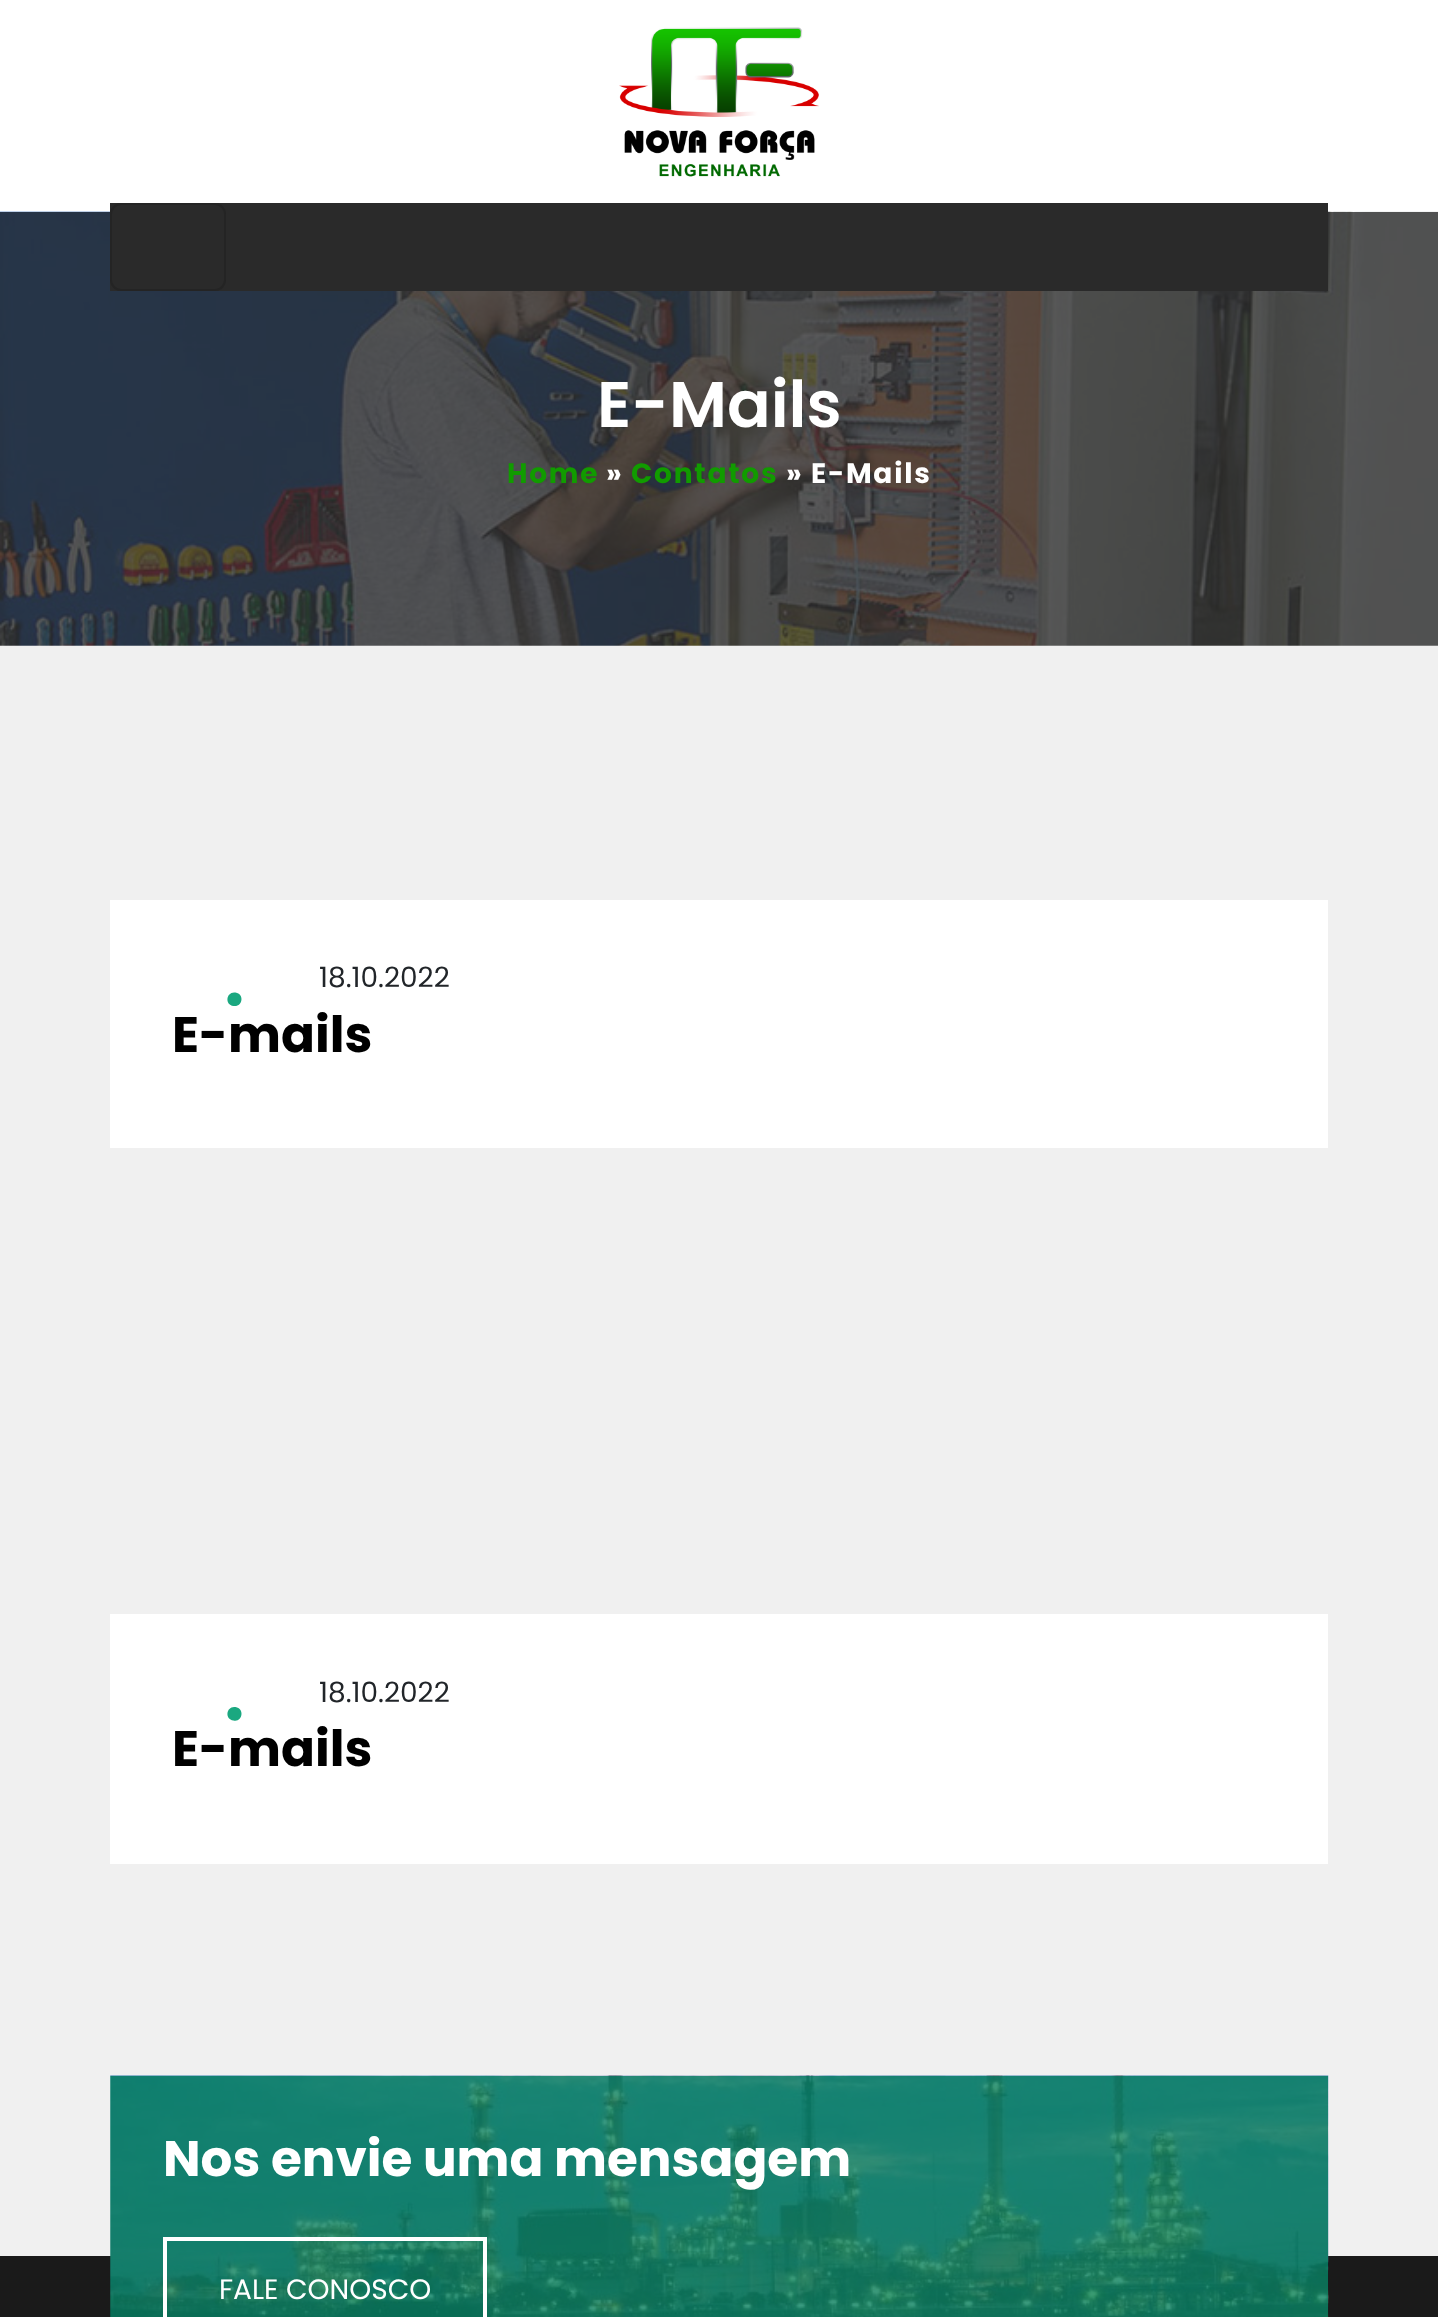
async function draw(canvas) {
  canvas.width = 1438
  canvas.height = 2317
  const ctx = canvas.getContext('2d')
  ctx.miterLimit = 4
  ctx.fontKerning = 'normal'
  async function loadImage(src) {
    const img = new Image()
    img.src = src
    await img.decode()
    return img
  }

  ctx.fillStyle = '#fff'
  ctx.fillRect(0, 0, 1438, 2317)
  ctx.drawImage(await loadImage('image0.png'), 619, 27, 200, 150)
  ctx.drawImage(await loadImage('image1.png'), 0, 211, 1438, 435)
  ctx.fillStyle = '#2a2a2a'
  ctx.fillRect(110, 203, 1218, 88)
  ctx.beginPath()
  ctx.roundRect(111, 204, 114, 86, 10)
  ctx.strokeStyle = '#242424'
  ctx.lineWidth = 2
  ctx.stroke()
  ctx.font = '600 64.5px Poppins'
  ctx.fillStyle = '#fff'
  ctx.fillText('E-Mails', 597, 427)
  ctx.letterSpacing = '1.75px'
  ctx.font = 'bold 28px Poppins'
  ctx.fillStyle = '#119b00'
  ctx.fillText('Home', 507, 483)
  ctx.fillStyle = '#fff'
  ctx.fillText('»', 606, 483)
  ctx.fillStyle = '#119b00'
  ctx.fillText('Contatos', 631, 483)
  ctx.fillStyle = '#fff'
  ctx.fillText('» E-Mails', 786, 483)
  ctx.fillStyle = '#f0f0f0'
  ctx.fillRect(0, 646, 1438, 1430)
  ctx.fillStyle = '#fff'
  ctx.fillRect(110, 900, 1218, 248)
  ctx.letterSpacing = '0px'
  ctx.font = '28px Poppins'
  ctx.fillStyle = '#212529'
  ctx.fillText('18.10.2022', 319, 987)
  ctx.fillStyle = '#1aa880'
  ctx.beginPath()
  ctx.moveTo(235.5, 992.5)
  ctx.bezierCurveTo(245, 994, 242.5, 1007.5, 233.5, 1006)
  ctx.bezierCurveTo(224, 1004.5, 226.5, 991, 235.5, 992.5)
  ctx.closePath()
  ctx.fill()
  ctx.font = 'bold 50px Poppins'
  ctx.fillStyle = '#000'
  ctx.fillText('E-mails', 172, 1052)
  ctx.fillStyle = '#fff'
  ctx.fillRect(110, 1614, 1218, 250)
  ctx.font = '28px Poppins'
  ctx.fillStyle = '#212529'
  ctx.fillText('18.10.2022', 319, 1702)
  ctx.fillStyle = '#1aa880'
  ctx.beginPath()
  ctx.moveTo(235.5, 1707)
  ctx.bezierCurveTo(245, 1708.5, 242.5, 1722.5, 233.5, 1720.5)
  ctx.bezierCurveTo(224, 1719, 226.5, 1705.5, 235.5, 1707)
  ctx.closePath()
  ctx.fill()
  ctx.font = 'bold 50px Poppins'
  ctx.fillStyle = '#000'
  ctx.fillText('E-mails', 172, 1766)
  ctx.fillStyle = '#f0f0f0'
  ctx.fillRect(0, 2076, 1438, 180)
  ctx.fillStyle = '#1a1a1a'
  ctx.fillRect(0, 2256, 1438, 61)
  ctx.drawImage(await loadImage('image2.png'), 110, 2075, 1219, 242)
  ctx.fillStyle = '#fff'
  ctx.fillText('Nos envie uma mensagem', 163, 2176)
  ctx.strokeStyle = '#fff'
  ctx.lineWidth = 4
  ctx.strokeRect(165, 2239, 320, 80)
  ctx.font = '28px Poppins'
  ctx.fillText('FALE CONOSCO', 219, 2299)
}

draw(document.querySelector('canvas'))
